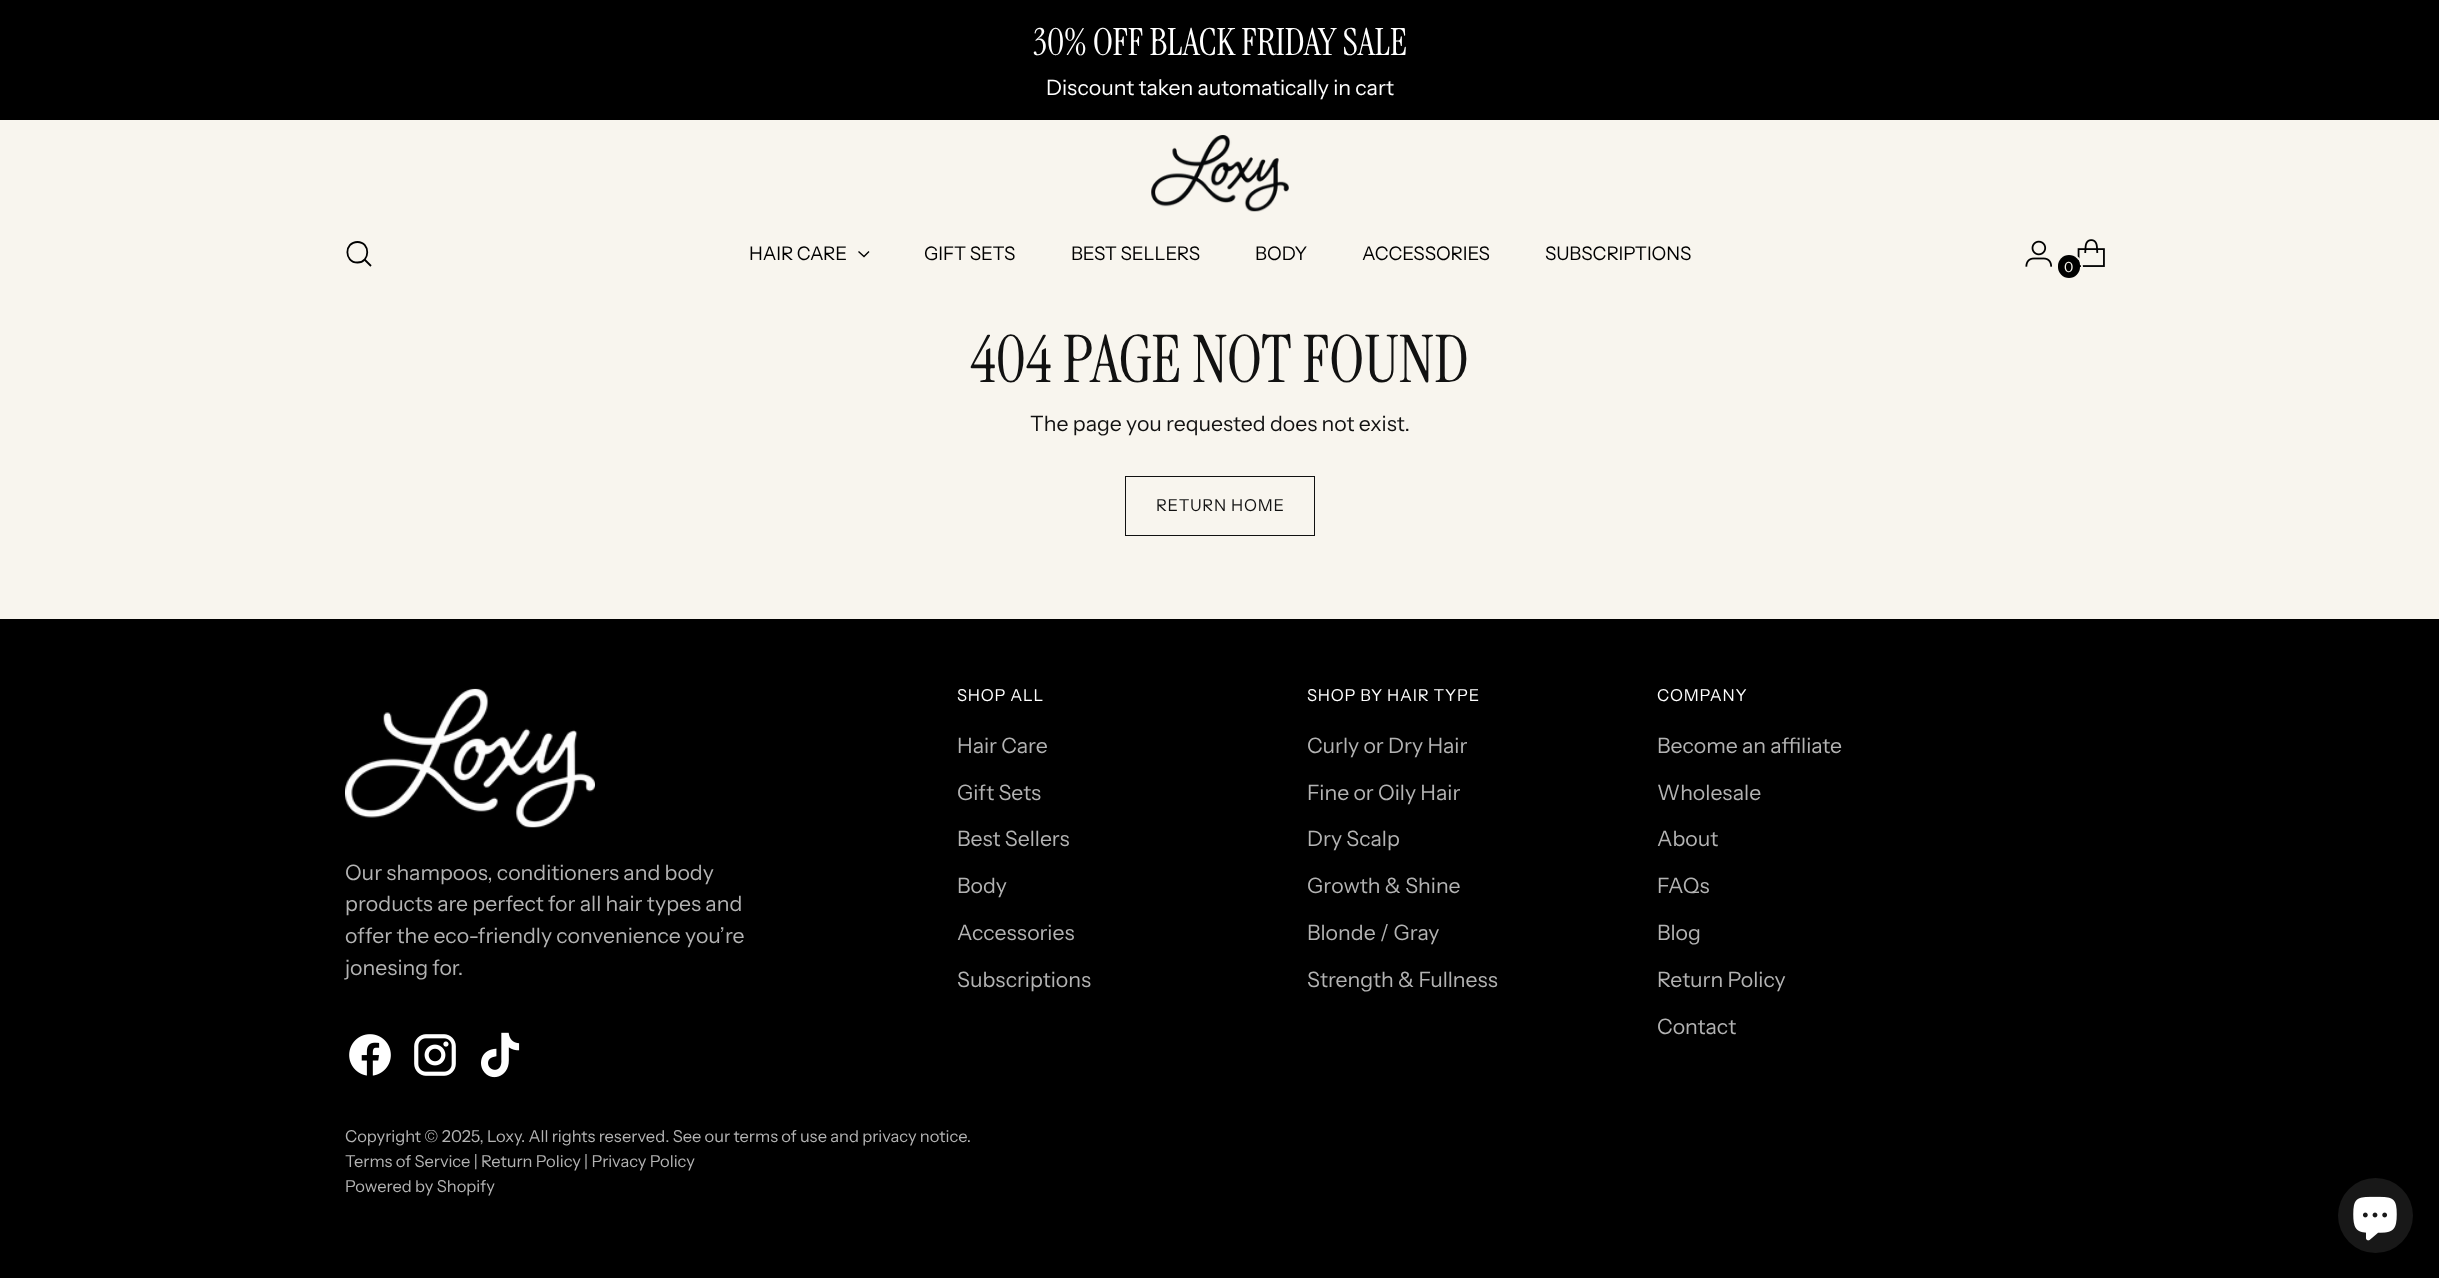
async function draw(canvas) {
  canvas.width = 2439
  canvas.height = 1278
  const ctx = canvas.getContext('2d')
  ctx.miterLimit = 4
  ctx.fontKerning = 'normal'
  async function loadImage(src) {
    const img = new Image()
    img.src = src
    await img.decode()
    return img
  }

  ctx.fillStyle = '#f8f5ee'
  ctx.fillRect(0, 0, 2439, 1278)
  ctx.fillStyle = '#000'
  ctx.fillRect(0, 0, 2439, 120)
  ctx.font = '37.5px Instrument Serif'
  ctx.fillStyle = '#fff'
  ctx.fillText('30% OFF BLACK FRIDAY SALE', 1033, 55)
  ctx.font = '21.25px Instrument Sans'
  ctx.fillText('Discount taken automatically in cart', 1046, 95)
  ctx.drawImage(await loadImage('image0.png'), 1151, 135, 138, 77)
  ctx.beginPath()
  ctx.moveTo(357.5, 262.5)
  ctx.bezierCurveTo(370.5, 262.5, 370.5, 242, 357.5, 242)
  ctx.bezierCurveTo(344, 242, 344, 262.5, 357.5, 262.5)
  ctx.closePath()
  ctx.strokeStyle = '#000'
  ctx.lineWidth = 1.8
  ctx.lineCap = 'round'
  ctx.stroke()
  ctx.beginPath()
  ctx.moveTo(364.5, 259.5)
  ctx.lineTo(371, 266)
  ctx.lineCap = 'butt'
  ctx.stroke()
  ctx.letterSpacing = '-0.1px'
  ctx.font = '18.75px Instrument Sans'
  ctx.fillStyle = '#000'
  ctx.fillText('HAIR CARE', 749, 260)
  ctx.beginPath()
  ctx.moveTo(858.5, 251.5)
  ctx.lineTo(864, 256.5)
  ctx.lineTo(869, 251.5)
  ctx.lineWidth = 1.4
  ctx.stroke()
  ctx.fillText('GIFT SETS', 924, 260)
  ctx.fillText('BEST SELLERS', 1071, 260)
  ctx.fillText('BODY', 1255, 260)
  ctx.fillText('ACCESSORIES', 1362, 260)
  ctx.fillText('SUBSCRIPTIONS', 1545, 260)
  ctx.drawImage(await loadImage('image1.png'), 2025, 240, 28, 27)
  ctx.drawImage(await loadImage('image2.png'), 2077, 239, 28, 28)
  ctx.beginPath()
  ctx.roundRect(2057, 255, 25, 24, 12)
  ctx.strokeStyle = '#f8f5ee'
  ctx.lineWidth = 2
  ctx.stroke()
  ctx.beginPath()
  ctx.roundRect(2058, 255, 22, 23, 11)
  ctx.fill()
  ctx.letterSpacing = '0px'
  ctx.font = '14px Instrument Sans'
  ctx.fillStyle = '#f8f5ee'
  ctx.fillText('0', 2064, 272)
  ctx.font = '65.5px Instrument Serif'
  ctx.fillStyle = '#111'
  ctx.fillText('404 PAGE NOT FOUND', 970, 382)
  ctx.font = '21.25px Instrument Sans'
  ctx.fillText('The page you requested does not exist.', 1030, 431)
  ctx.strokeStyle = '#111'
  ctx.lineWidth = 1
  ctx.strokeRect(1125.5, 476.5, 189, 59)
  ctx.letterSpacing = '0.8px'
  ctx.font = '16.5px Instrument Sans'
  ctx.fillText('RETURN HOME', 1156, 511)
  ctx.fillStyle = '#000'
  ctx.fillRect(0, 619, 2439, 659)
  ctx.drawImage(await loadImage('image3.png'), 345, 688, 250, 140)
  ctx.letterSpacing = '0px'
  ctx.font = '21.25px Instrument Sans'
  ctx.fillStyle = '#b3b3b3'
  ctx.fillText('Our shampoos, conditioners and body', 345, 880)
  ctx.fillText('products are perfect for all hair types and', 345, 911)
  ctx.fillText('offer the eco-friendly convenience you’re', 345, 943)
  ctx.fillText('jonesing for.', 345, 975)
  ctx.drawImage(await loadImage('image4.png'), 349, 1034, 42, 42)
  ctx.drawImage(await loadImage('image5.png'), 414, 1034, 42, 42)
  ctx.drawImage(await loadImage('image6.png'), 481, 1032, 39, 46)
  ctx.letterSpacing = '0.8px'
  ctx.font = '16.5px Instrument Sans'
  ctx.fillStyle = '#fff'
  ctx.fillText('SHOP ALL', 957, 701)
  ctx.letterSpacing = '0px'
  ctx.font = '21.25px Instrument Sans'
  ctx.fillStyle = '#b3b3b3'
  ctx.fillText('Hair Care', 957, 753)
  ctx.fillText('Gift Sets', 957, 800)
  ctx.fillText('Best Sellers', 957, 846)
  ctx.fillText('Body', 957, 893)
  ctx.fillText('Accessories', 957, 940)
  ctx.fillText('Subscriptions', 957, 987)
  ctx.letterSpacing = '0.8px'
  ctx.font = '16.5px Instrument Sans'
  ctx.fillStyle = '#fff'
  ctx.fillText('SHOP BY HAIR TYPE', 1307, 701)
  ctx.letterSpacing = '0px'
  ctx.font = '21.25px Instrument Sans'
  ctx.fillStyle = '#b3b3b3'
  ctx.fillText('Curly or Dry Hair', 1307, 753)
  ctx.fillText('Fine or Oily Hair', 1307, 800)
  ctx.fillText('Dry Scalp', 1307, 846)
  ctx.fillText('Growth & Shine', 1307, 893)
  ctx.fillText('Blonde / Gray', 1307, 940)
  ctx.fillText('Strength & Fullness', 1307, 987)
  ctx.letterSpacing = '0.8px'
  ctx.font = '16.5px Instrument Sans'
  ctx.fillStyle = '#fff'
  ctx.fillText('COMPANY', 1657, 701)
  ctx.letterSpacing = '0px'
  ctx.font = '21.25px Instrument Sans'
  ctx.fillStyle = '#b3b3b3'
  ctx.fillText('Become an affiliate', 1657, 753)
  ctx.fillText('Wholesale', 1657, 800)
  ctx.fillText('About', 1657, 846)
  ctx.fillText('FAQs', 1657, 893)
  ctx.fillText('Blog', 1657, 940)
  ctx.fillText('Return Policy', 1657, 987)
  ctx.fillText('Contact', 1657, 1034)
  ctx.font = '16.5px Instrument Sans'
  ctx.fillText('Copyright © 2025, Loxy', 345, 1142)
  ctx.fillText('. All rights reserved. See our terms of use and privacy notice.', 521, 1142)
  ctx.fillText('Terms of Service | Return Policy | Privacy Policy', 345, 1167)
  ctx.fillText('Powered by Shopify', 345, 1192)
  ctx.fillStyle = '#181818'
  ctx.beginPath()
  ctx.arc(2375.5, 1215.5, 37.5, 0, 2 * Math.PI)
  ctx.fill()
  ctx.drawImage(await loadImage('image7.png'), 2353, 1196, 44, 45)
}

draw(document.querySelector('canvas'))
